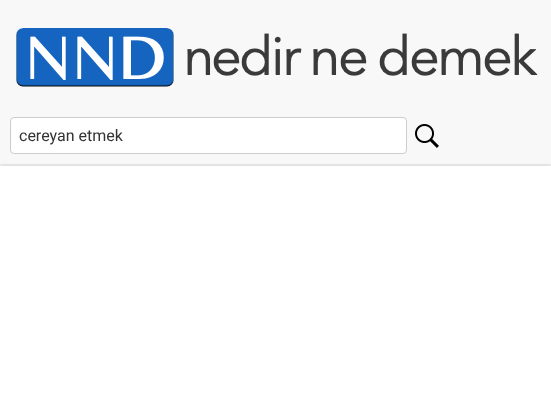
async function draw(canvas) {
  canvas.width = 551
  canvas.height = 407
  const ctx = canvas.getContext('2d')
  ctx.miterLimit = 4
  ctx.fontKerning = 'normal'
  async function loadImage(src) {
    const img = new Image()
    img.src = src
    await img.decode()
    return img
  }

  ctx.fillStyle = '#f1f1f1'
  ctx.fillRect(0, 0, 551, 407)
  ctx.fillStyle = '#f8f8f8'
  ctx.fillRect(0, 0, 551, 164)
  ctx.fillStyle = '#eee'
  ctx.fillRect(0, 164, 551, 1)
  ctx.drawImage(await loadImage('image0.png'), 16, 28, 522, 59)
  ctx.fillStyle = '#fff'
  ctx.beginPath()
  ctx.roundRect(10.5, 117.5, 396, 36, 3.5)
  ctx.fill()
  ctx.strokeStyle = '#ccc'
  ctx.stroke()
  ctx.font = '16px Roboto'
  ctx.fillStyle = '#333'
  ctx.fillText('cereyan etmek', 19, 141)
  ctx.drawImage(await loadImage('image1.png'), 415, 124, 24, 24)
  ctx.fillStyle = '#00000040'
  ctx.filter = 'blur(2px)'
  ctx.beginPath()
  ctx.rect(0, 167, 551, 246)
  ctx.fill()
  ctx.filter = 'none'
  ctx.fillStyle = '#fff'
  ctx.fillRect(0, 166, 551, 241)
}

draw(document.querySelector('canvas'))
